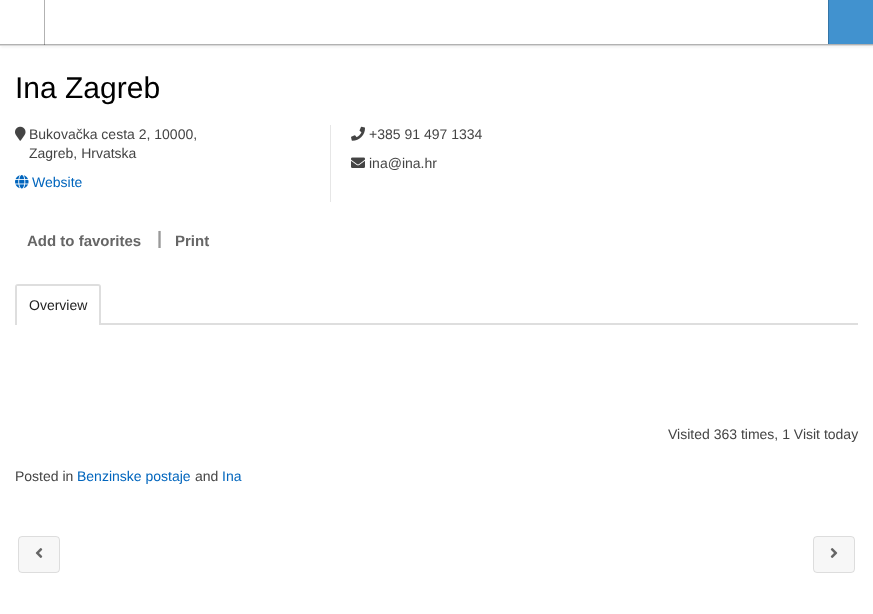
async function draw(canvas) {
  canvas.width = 873
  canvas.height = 614
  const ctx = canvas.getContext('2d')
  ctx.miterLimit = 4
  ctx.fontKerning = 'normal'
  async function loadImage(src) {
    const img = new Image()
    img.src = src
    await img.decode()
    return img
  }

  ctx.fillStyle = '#fff'
  ctx.fillRect(0, 0, 873, 614)
  ctx.fillStyle = '#0000001a'
  ctx.filter = 'blur(1px)'
  ctx.beginPath()
  ctx.rect(1, 46, 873, 1)
  ctx.fill()
  ctx.filter = 'none'
  ctx.fillStyle = '#b2b2b2'
  ctx.fillRect(0, 44, 873, 1)
  ctx.fillStyle = '#0000004d'
  ctx.fillRect(44, 0, 1, 45)
  ctx.fillStyle = '#dadada'
  ctx.fillRect(0, 45, 873, 1)
  ctx.fillStyle = '#4192cf'
  ctx.fillRect(829, 0, 44, 44)
  ctx.fillStyle = '#3475a6'
  ctx.fillRect(828, 0, 1, 44)
  ctx.font = '30px Liberation Sans'
  ctx.fillStyle = '#000'
  ctx.fillText('Ina Zagreb', 15, 98)
  ctx.fillStyle = '#e6e6e6'
  ctx.fillRect(330, 125, 1, 77)
  ctx.drawImage(await loadImage('image0.png'), 15, 126, 11, 15)
  ctx.font = '14px Liberation Sans'
  ctx.fillStyle = '#444'
  ctx.fillText('Bukovačka cesta 2, 10000,', 29, 139)
  ctx.fillText('Zagreb, Hrvatska', 29, 158)
  ctx.drawImage(await loadImage('image1.png'), 15, 175, 14, 14)
  ctx.fillStyle = '#0165bd'
  ctx.fillText('Website', 32, 187)
  ctx.drawImage(await loadImage('image2.png'), 351, 126, 14, 15)
  ctx.fillStyle = '#444'
  ctx.fillText('+385 91 497 1334', 369, 139)
  ctx.drawImage(await loadImage('image3.png'), 351, 157, 14, 11)
  ctx.fillText('ina@ina.hr', 369, 168)
  ctx.font = 'bold 15px Liberation Sans'
  ctx.fillStyle = '#666'
  ctx.fillText('Add to favorites', 27, 246)
  ctx.font = 'bold 18px Liberation Sans'
  ctx.fillStyle = '#999'
  ctx.fillText('|', 157, 244)
  ctx.font = 'bold 15px Liberation Sans'
  ctx.fillStyle = '#666'
  ctx.fillText('Print', 175, 246)
  ctx.fillStyle = '#dedede'
  ctx.fillRect(101, 323, 757, 2)
  ctx.beginPath()
  ctx.moveTo(18, 284)
  ctx.lineTo(98, 284)
  ctx.bezierCurveTo(100, 284, 101, 285, 101, 287)
  ctx.lineTo(101, 325)
  ctx.lineTo(15, 325)
  ctx.lineTo(15, 287)
  ctx.bezierCurveTo(15, 285, 16, 284, 18, 284)
  ctx.closePath()
  ctx.moveTo(18, 286)
  ctx.lineTo(98, 286)
  ctx.bezierCurveTo(99, 286, 99, 286, 99, 287)
  ctx.lineTo(99, 325)
  ctx.lineTo(17, 325)
  ctx.lineTo(17, 286)
  ctx.closePath()
  ctx.fill('evenodd')
  ctx.font = '14px Liberation Sans'
  ctx.fillStyle = '#222'
  ctx.fillText('Overview', 29, 310)
  ctx.fillStyle = '#444'
  ctx.fillText('Visited 363 times, 1 Visit today', 668, 439)
  ctx.fillText('Posted in', 15, 481)
  ctx.fillStyle = '#0165bd'
  ctx.fillText('Benzinske postaje', 77, 481)
  ctx.fillStyle = '#444'
  ctx.fillText('and', 195, 481)
  ctx.fillStyle = '#0165bd'
  ctx.fillText('Ina', 222, 481)
  ctx.fillStyle = '#f7f7f7'
  ctx.beginPath()
  ctx.roundRect(18, 536, 42, 37, 4)
  ctx.fill()
  ctx.beginPath()
  ctx.roundRect(18.5, 536.5, 41, 36, 3.5)
  ctx.strokeStyle = '#0000001a'
  ctx.stroke()
  ctx.drawImage(await loadImage('image4.png'), 35, 548, 8, 10)
  ctx.beginPath()
  ctx.roundRect(813, 536, 42, 37, 4)
  ctx.fill()
  ctx.beginPath()
  ctx.roundRect(813.5, 536.5, 41, 36, 3.5)
  ctx.stroke()
  ctx.drawImage(await loadImage('image5.png'), 830, 548, 8, 10)
}

draw(document.querySelector('canvas'))
